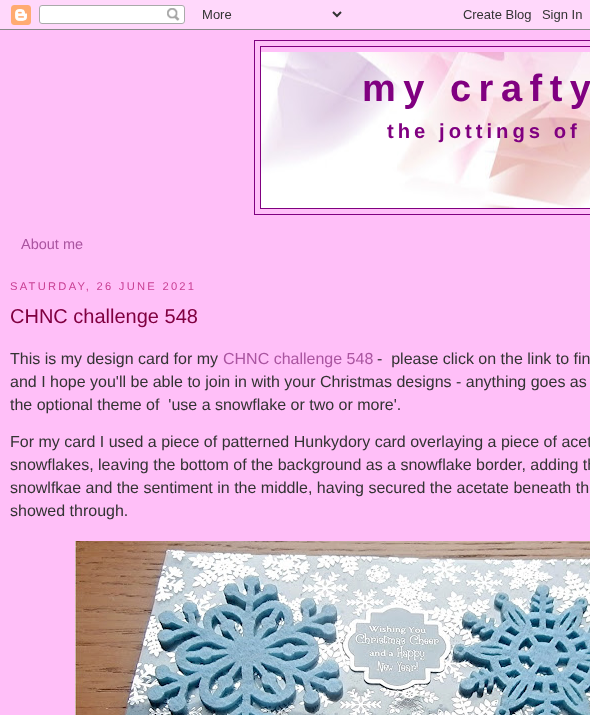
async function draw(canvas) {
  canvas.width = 590
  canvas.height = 715
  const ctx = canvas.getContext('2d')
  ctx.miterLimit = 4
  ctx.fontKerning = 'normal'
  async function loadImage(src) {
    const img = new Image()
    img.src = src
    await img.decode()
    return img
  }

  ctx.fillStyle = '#ffbff8'
  ctx.fillRect(0, 0, 590, 715)
  ctx.drawImage(await loadImage('image0.png'), 0, 0, 590, 30)
  ctx.strokeStyle = '#800080'
  ctx.strokeRect(254.5, 40.5, 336, 174)
  ctx.strokeRect(260.5, 46.5, 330, 162)
  ctx.drawImage(await loadImage('image1.png'), 261, 52, 329, 156)
  ctx.letterSpacing = '7.5px'
  ctx.font = 'bold 38px Liberation Sans'
  ctx.fillStyle = '#800080'
  ctx.fillText('my crafty', 362, 101)
  ctx.letterSpacing = '4px'
  ctx.font = 'bold 20.25px Liberation Sans'
  ctx.fillText('the jottings of', 387, 138)
  ctx.letterSpacing = '0px'
  ctx.font = '14.5px Liberation Sans'
  ctx.fillStyle = '#aa55a0'
  ctx.fillText('About me', 21, 249)
  ctx.letterSpacing = '2.25px'
  ctx.font = '11.2px Liberation Sans'
  ctx.fillStyle = '#c94093'
  ctx.fillText('SATURDAY, 26 JUNE 2021', 10, 290)
  ctx.letterSpacing = '0px'
  ctx.font = '20px Liberation Sans'
  ctx.fillStyle = '#800040'
  ctx.fillText('CHNC challenge 548', 10, 323)
  ctx.font = '16px Liberation Sans'
  ctx.fillStyle = '#333'
  ctx.fillText('This is my design card for my', 10, 364)
  ctx.fillStyle = '#aa55a0'
  ctx.fillText('CHNC challenge 548', 223, 364)
  ctx.fillStyle = '#333'
  ctx.fillText('-  please click on the link to fin', 377, 364)
  ctx.fillText('and I hope you\'ll be able to join in with your Christmas designs - anything goes as', 10, 387)
  ctx.fillText('the optional theme of  \'use a snowflake or two or more\'.', 10, 410)
  ctx.fillText('For my card I used a piece of patterned Hunkydory card overlaying a piece of acet', 10, 447)
  ctx.fillText('snowflakes, leaving the bottom of the background as a snowflake border, adding th', 10, 470)
  ctx.fillText('snowlfkae and the sentiment in the middle, having secured the acetate beneath th', 10, 493)
  ctx.fillText('showed through.', 10, 516)
  ctx.drawImage(await loadImage('image2.png'), 75, 541, 515, 174)
}

draw(document.querySelector('canvas'))
